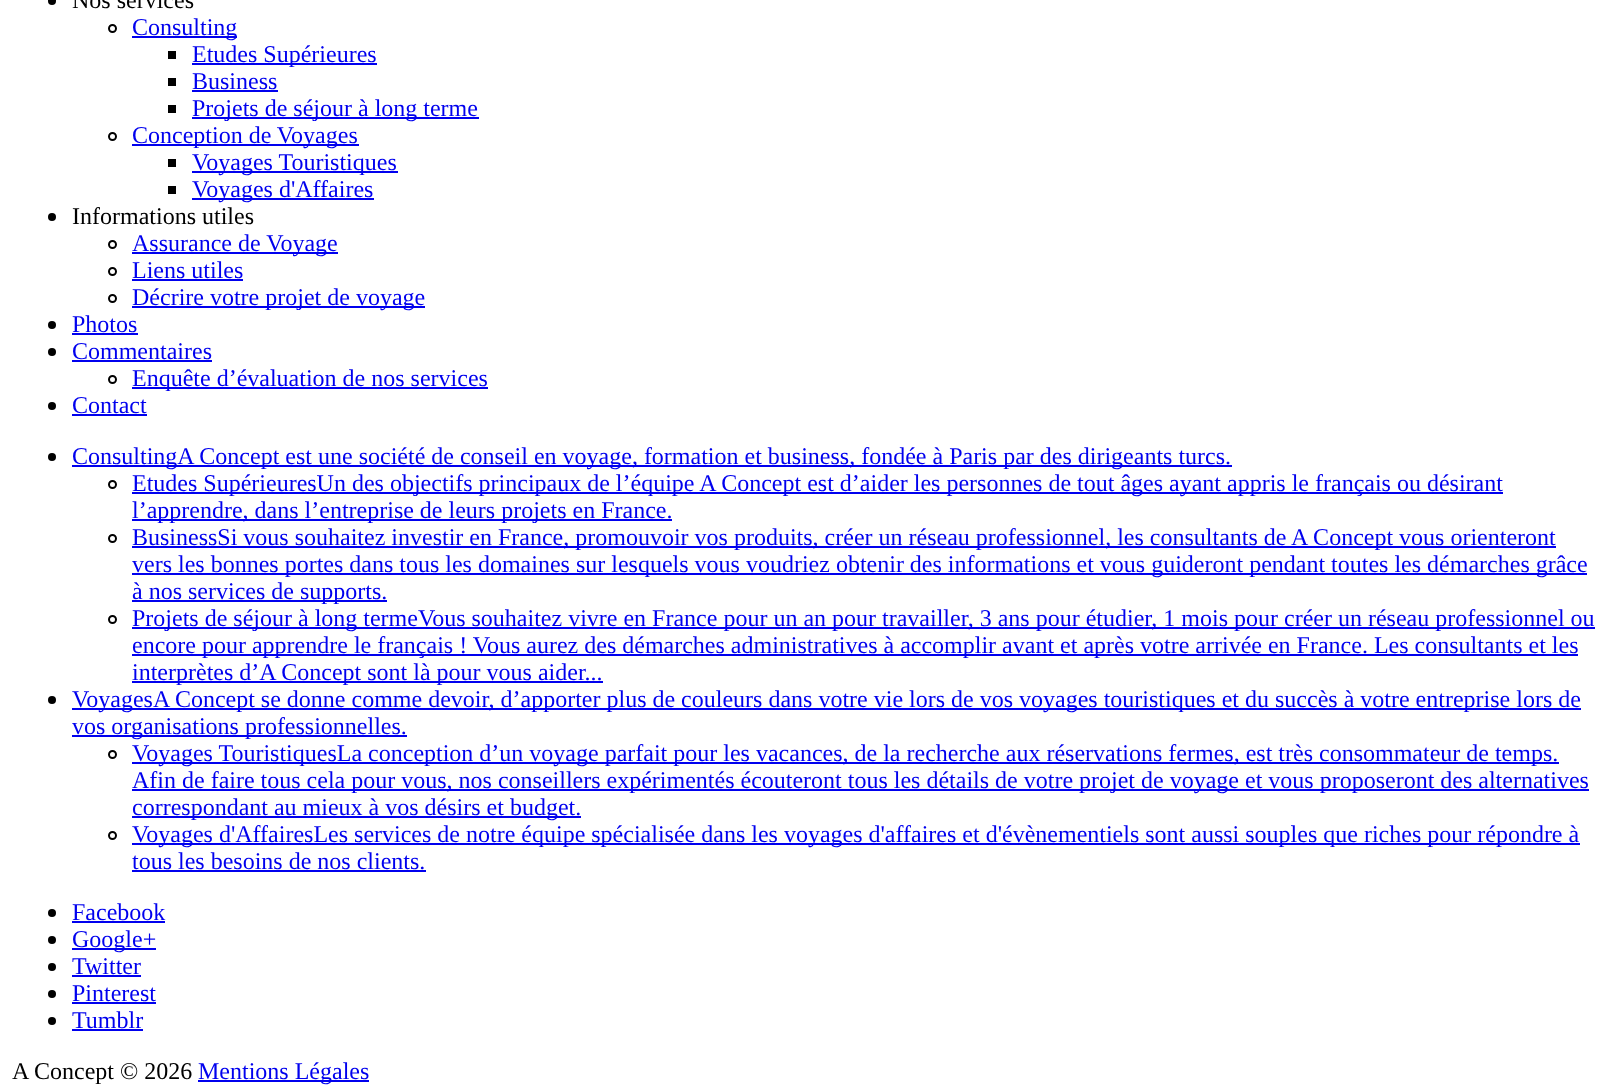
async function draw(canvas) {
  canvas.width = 1607
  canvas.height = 1086
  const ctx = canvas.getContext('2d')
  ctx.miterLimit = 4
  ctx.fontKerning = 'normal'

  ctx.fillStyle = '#fff'
  ctx.fillRect(0, 0, 1607, 1086)
  ctx.fillStyle = '#000'
  ctx.beginPath()
  ctx.arc(52, 1, 4, 0, 2 * Math.PI)
  ctx.fill()
  ctx.font = '24px Liberation Serif'
  ctx.fillText('Nos services', 72, 8)
  ctx.beginPath()
  ctx.arc(112.5, 28.5, 3.5, 0, 2 * Math.PI)
  ctx.strokeStyle = '#000'
  ctx.lineWidth = 2
  ctx.stroke()
  ctx.fillStyle = '#00e'
  ctx.fillRect(132, 36, 105, 2)
  ctx.fillText('Consulting', 132, 35)
  ctx.fillStyle = '#000'
  ctx.fillRect(168, 51, 8, 8)
  ctx.fillStyle = '#00e'
  ctx.fillRect(192, 63, 185, 2)
  ctx.fillText('Etudes Supérieures', 192, 62)
  ctx.fillStyle = '#000'
  ctx.fillRect(168, 78, 8, 8)
  ctx.fillStyle = '#00e'
  ctx.fillText('Business', 192, 89)
  ctx.fillRect(192, 90, 86, 2)
  ctx.fillStyle = '#000'
  ctx.fillRect(168, 105, 8, 8)
  ctx.fillStyle = '#00e'
  ctx.fillRect(192, 117, 287, 2)
  ctx.fillText('Projets de séjour à long terme', 192, 116)
  ctx.beginPath()
  ctx.arc(112.5, 136.5, 3.5, 0, 2 * Math.PI)
  ctx.stroke()
  ctx.fillRect(132, 144, 227, 2)
  ctx.fillText('Conception de Voyages', 132, 143)
  ctx.fillStyle = '#000'
  ctx.fillRect(168, 159, 8, 8)
  ctx.fillStyle = '#00e'
  ctx.fillRect(192, 171, 206, 2)
  ctx.fillText('Voyages Touristiques', 192, 170)
  ctx.fillStyle = '#000'
  ctx.fillRect(168, 186, 8, 8)
  ctx.fillStyle = '#00e'
  ctx.fillRect(192, 198, 182, 2)
  ctx.fillText('Voyages d\'Affaires', 192, 197)
  ctx.fillStyle = '#000'
  ctx.beginPath()
  ctx.arc(52, 217, 4, 0, 2 * Math.PI)
  ctx.fill()
  ctx.fillText('Informations utiles', 72, 224)
  ctx.beginPath()
  ctx.arc(112.5, 244.5, 3.5, 0, 2 * Math.PI)
  ctx.stroke()
  ctx.fillStyle = '#00e'
  ctx.fillRect(132, 252, 206, 2)
  ctx.fillText('Assurance de Voyage', 132, 251)
  ctx.beginPath()
  ctx.arc(112.5, 271.5, 3.5, 0, 2 * Math.PI)
  ctx.stroke()
  ctx.fillText('Liens utiles', 132, 278)
  ctx.fillRect(132, 279, 111, 2)
  ctx.beginPath()
  ctx.arc(112.5, 298.5, 3.5, 0, 2 * Math.PI)
  ctx.stroke()
  ctx.fillRect(132, 306, 293, 2)
  ctx.fillText('Décrire votre projet de voyage', 132, 305)
  ctx.fillStyle = '#000'
  ctx.beginPath()
  ctx.arc(52, 325, 4, 0, 2 * Math.PI)
  ctx.fill()
  ctx.fillStyle = '#00e'
  ctx.fillText('Photos', 72, 332)
  ctx.fillRect(72, 333, 66, 2)
  ctx.fillStyle = '#000'
  ctx.beginPath()
  ctx.arc(52, 352, 4, 0, 2 * Math.PI)
  ctx.fill()
  ctx.fillStyle = '#00e'
  ctx.fillText('Commentaires', 72, 359)
  ctx.fillRect(72, 360, 140, 2)
  ctx.beginPath()
  ctx.arc(112.5, 379.5, 3.5, 0, 2 * Math.PI)
  ctx.stroke()
  ctx.fillRect(132, 387, 356, 2)
  ctx.fillText('Enquête d’évaluation de nos services', 132, 386)
  ctx.fillStyle = '#000'
  ctx.beginPath()
  ctx.arc(52, 406, 4, 0, 2 * Math.PI)
  ctx.fill()
  ctx.fillStyle = '#00e'
  ctx.fillText('Contact', 72, 413)
  ctx.fillRect(72, 414, 75, 2)
  ctx.fillStyle = '#000'
  ctx.beginPath()
  ctx.arc(52, 457, 4, 0, 2 * Math.PI)
  ctx.fill()
  ctx.fillStyle = '#00e'
  ctx.fillRect(72, 465, 1160, 2)
  ctx.fillText('ConsultingA Concept est une société de conseil en voyage, formation et business, fondée à Paris par des dirigeants turcs.', 72, 464)
  ctx.beginPath()
  ctx.arc(112.5, 484.5, 3.5, 0, 2 * Math.PI)
  ctx.stroke()
  ctx.fillRect(132, 492, 1371, 2)
  ctx.fillText('Etudes SupérieuresUn des objectifs principaux de l’équipe A Concept est d’aider les personnes de tout âges ayant appris le français ou désirant', 132, 491)
  ctx.fillRect(132, 519, 540, 2)
  ctx.fillText('l’apprendre, dans l’entreprise de leurs projets en France.', 132, 518)
  ctx.beginPath()
  ctx.arc(112.5, 538.5, 3.5, 0, 2 * Math.PI)
  ctx.stroke()
  ctx.fillRect(132, 546, 1424, 2)
  ctx.fillText('BusinessSi vous souhaitez investir en France, promouvoir vos produits, créer un réseau professionnel, les consultants de A Concept vous orienteront', 132, 545)
  ctx.fillRect(132, 573, 1455, 2)
  ctx.fillText('vers les bonnes portes dans tous les domaines sur lesquels vous voudriez obtenir des informations et vous guideront pendant toutes les démarches grâce', 132, 572)
  ctx.fillRect(132, 600, 255, 2)
  ctx.fillText('à nos services de supports.', 132, 599)
  ctx.beginPath()
  ctx.arc(112.5, 619.5, 3.5, 0, 2 * Math.PI)
  ctx.stroke()
  ctx.fillRect(132, 627, 1463, 2)
  ctx.fillText('Projets de séjour à long termeVous souhaitez vivre en France pour un an pour travailler, 3 ans pour étudier, 1 mois pour créer un réseau professionnel ou', 132, 626)
  ctx.fillRect(132, 654, 1446, 2)
  ctx.fillText('encore pour apprendre le français ! Vous aurez des démarches administratives à accomplir avant et après votre arrivée en France. Les consultants et les', 132, 653)
  ctx.fillRect(132, 681, 471, 2)
  ctx.fillText('interprètes d’A Concept sont là pour vous aider...', 132, 680)
  ctx.fillStyle = '#000'
  ctx.beginPath()
  ctx.arc(52, 700, 4, 0, 2 * Math.PI)
  ctx.fill()
  ctx.fillStyle = '#00e'
  ctx.fillRect(72, 708, 1509, 2)
  ctx.fillText('VoyagesA Concept se donne comme devoir, d’apporter plus de couleurs dans votre vie lors de vos voyages touristiques et du succès à votre entreprise lors de', 72, 707)
  ctx.fillRect(72, 735, 335, 2)
  ctx.fillText('vos organisations professionnelles.', 72, 734)
  ctx.beginPath()
  ctx.arc(112.5, 754.5, 3.5, 0, 2 * Math.PI)
  ctx.stroke()
  ctx.fillRect(132, 762, 1427, 2)
  ctx.fillText('Voyages TouristiquesLa conception d’un voyage parfait pour les vacances, de la recherche aux réservations fermes, est très consommateur de temps.', 132, 761)
  ctx.fillRect(132, 789, 1457, 2)
  ctx.fillText('Afin de faire tous cela pour vous, nos conseillers expérimentés écouteront tous les détails de votre projet de voyage et vous proposeront des alternatives', 132, 788)
  ctx.fillRect(132, 816, 449, 2)
  ctx.fillText('correspondant au mieux à vos désirs et budget.', 132, 815)
  ctx.beginPath()
  ctx.arc(112.5, 835.5, 3.5, 0, 2 * Math.PI)
  ctx.stroke()
  ctx.fillRect(132, 843, 1448, 2)
  ctx.fillText('Voyages d\'AffairesLes services de notre équipe spécialisée dans les voyages d\'affaires et d\'évènementiels sont aussi souples que riches pour répondre à', 132, 842)
  ctx.fillText('tous les besoins de nos clients.', 132, 869)
  ctx.fillRect(132, 870, 294, 2)
  ctx.fillStyle = '#000'
  ctx.beginPath()
  ctx.arc(52, 913, 4, 0, 2 * Math.PI)
  ctx.fill()
  ctx.fillStyle = '#00e'
  ctx.fillText('Facebook', 72, 920)
  ctx.fillRect(72, 921, 93, 2)
  ctx.fillStyle = '#000'
  ctx.beginPath()
  ctx.arc(52, 940, 4, 0, 2 * Math.PI)
  ctx.fill()
  ctx.fillStyle = '#00e'
  ctx.fillRect(72, 948, 84, 2)
  ctx.fillText('Google+', 72, 947)
  ctx.fillStyle = '#000'
  ctx.beginPath()
  ctx.arc(52, 967, 4, 0, 2 * Math.PI)
  ctx.fill()
  ctx.fillStyle = '#00e'
  ctx.fillText('Twitter', 72, 974)
  ctx.fillRect(72, 975, 69, 2)
  ctx.fillStyle = '#000'
  ctx.beginPath()
  ctx.arc(52, 994, 4, 0, 2 * Math.PI)
  ctx.fill()
  ctx.fillStyle = '#00e'
  ctx.fillText('Pinterest', 72, 1001)
  ctx.fillRect(72, 1002, 84, 2)
  ctx.fillStyle = '#000'
  ctx.beginPath()
  ctx.arc(52, 1021, 4, 0, 2 * Math.PI)
  ctx.fill()
  ctx.fillStyle = '#00e'
  ctx.fillText('Tumblr', 72, 1028)
  ctx.fillRect(72, 1029, 71, 2)
  ctx.fillStyle = '#000'
  ctx.fillText('A Concept © 2026', 12, 1079)
  ctx.fillStyle = '#00e'
  ctx.fillRect(198, 1080, 171, 2)
  ctx.fillText('Mentions Légales', 198, 1079)
}

draw(document.querySelector('canvas'))
